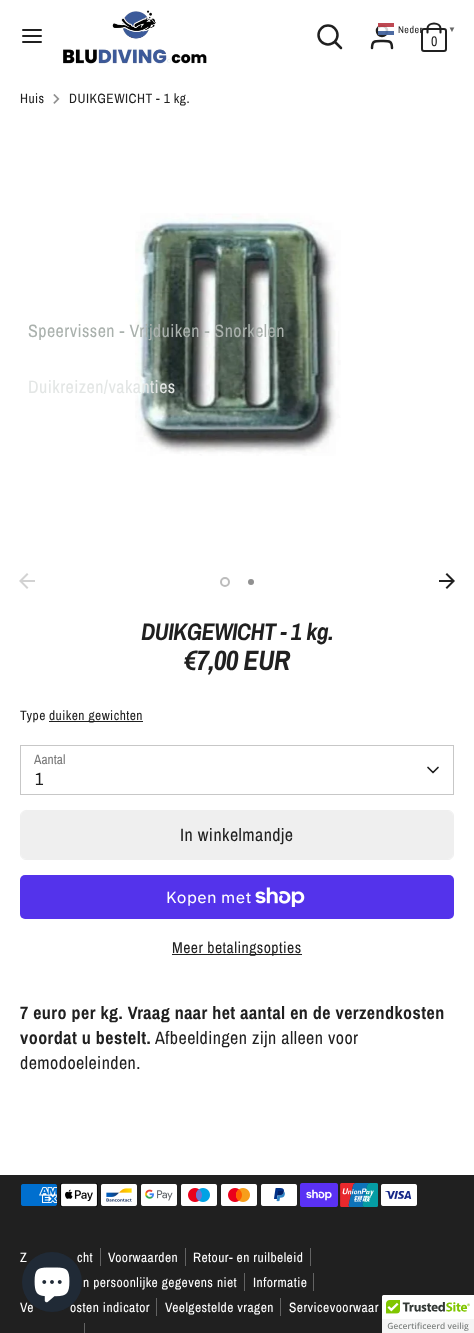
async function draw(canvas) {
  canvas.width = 474
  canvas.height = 1333
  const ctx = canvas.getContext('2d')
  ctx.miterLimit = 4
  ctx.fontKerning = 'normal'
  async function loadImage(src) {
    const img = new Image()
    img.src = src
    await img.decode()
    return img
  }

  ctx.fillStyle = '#fff'
  ctx.fillRect(0, 0, 474, 1333)
  ctx.beginPath()
  ctx.roundRect(422, 29, 24, 22, 2)
  ctx.strokeStyle = '#202020'
  ctx.lineWidth = 2
  ctx.stroke()
  ctx.letterSpacing = '0.45px'
  ctx.font = '10px Archivo Narrow'
  ctx.fillStyle = '#202020'
  ctx.fillText('Neder', 398, 33)
  ctx.beginPath()
  ctx.arc(382, 31, 5, 0, 2 * Math.PI)
  ctx.lineWidth = 2.5
  ctx.stroke()
  ctx.fillStyle = '#ffffffcc'
  ctx.fillRect(378, 24, 11, 11)
  ctx.fillStyle = '#21468bcc'
  ctx.fillRect(378, 31, 16, 4)
  ctx.fillStyle = '#ae1c28cc'
  ctx.fillRect(378, 23, 16, 4)
  ctx.font = 'bold 8px Liberation Sans'
  ctx.fillStyle = '#666'
  ctx.fillText('▼', 448, 32)
  ctx.beginPath()
  ctx.moveTo(23, 36)
  ctx.lineTo(41, 36)
  ctx.moveTo(23, 30)
  ctx.lineTo(41, 30)
  ctx.moveTo(23, 42)
  ctx.lineTo(41, 42)
  ctx.lineWidth = 2
  ctx.lineCap = 'round'
  ctx.stroke()
  ctx.drawImage(await loadImage('image0.png'), 63, 10, 144, 54)
  ctx.beginPath()
  ctx.arc(328, 35, 9.5, 0, 2 * Math.PI)
  ctx.lineWidth = 2.5
  ctx.stroke()
  ctx.beginPath()
  ctx.moveTo(341, 48)
  ctx.lineTo(335, 42)
  ctx.moveTo(392, 48)
  ctx.bezierCurveTo(392, 40.5, 389, 41, 382, 41)
  ctx.bezierCurveTo(375, 41, 372, 40.5, 372, 48)
  ctx.stroke()
  ctx.beginPath()
  ctx.moveTo(427.5, 32.5)
  ctx.lineTo(427.5, 28.5)
  ctx.bezierCurveTo(427.5, 25.5, 430.5, 23.5, 434, 23.5)
  ctx.bezierCurveTo(437.5, 23.5, 440.5, 25.5, 440.5, 28.5)
  ctx.lineTo(440.5, 32.5)
  ctx.lineWidth = 2.1
  ctx.stroke()
  ctx.letterSpacing = '0px'
  ctx.font = '14px Archivo Narrow'
  ctx.fillStyle = '#202020'
  ctx.fillText('0', 431, 46)
  ctx.drawImage(await loadImage('image2.png'), 135, 213, 206, 243)
  ctx.letterSpacing = '0.45px'
  ctx.font = '18px Archivo Narrow'
  ctx.fillStyle = '#aab1ad'
  ctx.fillText('Speervissen - Vrijduiken - Snorkelen', 28, 337)
  ctx.fillStyle = '#e3e6e5'
  ctx.fillText('Duikreizen/vakanties', 28, 393)
  ctx.font = '13.5px Archivo Narrow'
  ctx.fillStyle = '#202020'
  ctx.fillText('Huis', 20, 103)
  ctx.drawImage(await loadImage('image1.png'), 53, 94, 7, 10)
  ctx.fillText('DUIKGEWICHT - 1 kg.', 69, 103)
  ctx.drawImage(await loadImage('image3.png'), 19, 573, 16, 16)
  ctx.drawImage(await loadImage('image4.png'), 439, 573, 16, 16)
  ctx.beginPath()
  ctx.arc(225, 582, 4, 0, 2 * Math.PI)
  ctx.strokeStyle = '#bcbcbc'
  ctx.lineWidth = 2
  ctx.stroke()
  ctx.fillStyle = '#909090'
  ctx.beginPath()
  ctx.arc(251, 582, 3, 0, 2 * Math.PI)
  ctx.fill()
  ctx.letterSpacing = '-0.6px'
  ctx.font = 'italic bold 24px Archivo Narrow'
  ctx.fillStyle = '#202020'
  ctx.fillText('DUIKGEWICHT - 1 kg.', 141, 640)
  ctx.letterSpacing = '-0.75px'
  ctx.font = 'italic bold 28px Archivo Narrow'
  ctx.fillText('€7,00 EUR', 184, 670)
  ctx.letterSpacing = '0.45px'
  ctx.font = '13.5px Archivo Narrow'
  ctx.fillText('Type', 20, 720)
  ctx.fillRect(49, 721, 94, 1)
  ctx.fillText('duiken gewichten', 49, 720)
  ctx.letterSpacing = '0px'
  ctx.fillStyle = '#797979'
  ctx.fillText('Aantal', 34, 764)
  ctx.strokeStyle = '#c7c7c7'
  ctx.lineWidth = 1
  ctx.strokeRect(20.5, 745.5, 433, 49)
  ctx.beginPath()
  ctx.moveTo(428, 767.5)
  ctx.lineTo(433, 772.5)
  ctx.lineTo(438, 767.5)
  ctx.strokeStyle = '#202020'
  ctx.lineWidth = 1.7
  ctx.lineJoin = 'round'
  ctx.stroke()
  ctx.letterSpacing = '0.45px'
  ctx.font = '18px Archivo Narrow'
  ctx.fillStyle = '#202020'
  ctx.fillText('1', 35, 785)
  ctx.beginPath()
  ctx.roundRect(20.5, 810.5, 433, 49, 5.5)
  ctx.strokeStyle = '#efefef'
  ctx.lineWidth = 1
  ctx.lineJoin = 'miter'
  ctx.stroke()
  ctx.fillStyle = '#efefef'
  ctx.beginPath()
  ctx.roundRect(21, 811, 432, 48, 5)
  ctx.fill()
  ctx.fillStyle = '#202020'
  ctx.fillText('In winkelmandje', 180, 841)
  ctx.fillStyle = '#5433eb'
  ctx.beginPath()
  ctx.roundRect(20, 875, 434, 44, 5)
  ctx.fill()
  ctx.font = '16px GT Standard'
  ctx.fillStyle = '#fff'
  ctx.fillText('Kopen met', 166, 903)
  ctx.drawImage(await loadImage('image5.png'), 255, 887, 50, 20)
  ctx.fillStyle = '#202020'
  ctx.fillRect(172, 954, 130, 1)
  ctx.font = '15.75px Archivo Narrow'
  ctx.fillText('Meer betalingsopties', 172, 953)
  ctx.font = 'bold 18px Archivo Narrow'
  ctx.fillText('7 euro per kg. Vraag naar het aantal en de verzendkosten', 20, 1019)
  ctx.fillText('voordat u bestelt.', 20, 1044)
  ctx.font = '18px Archivo Narrow'
  ctx.fillText('Afbeeldingen zijn alleen voor', 155, 1044)
  ctx.fillText('demodoeleinden.', 20, 1069)
  ctx.fillRect(0, 1175, 474, 158)
  ctx.drawImage(await loadImage('image6.png'), 21, 1184, 36, 22)
  ctx.drawImage(await loadImage('image7.png'), 60, 1183, 38, 24)
  ctx.drawImage(await loadImage('image8.png'), 101, 1184, 36, 22)
  ctx.drawImage(await loadImage('image9.png'), 141, 1184, 36, 22)
  ctx.drawImage(await loadImage('image10.png'), 181, 1184, 36, 22)
  ctx.drawImage(await loadImage('image11.png'), 221, 1184, 36, 22)
  ctx.drawImage(await loadImage('image12.png'), 261, 1184, 36, 22)
  ctx.drawImage(await loadImage('image13.png'), 300, 1183, 38, 24)
  ctx.drawImage(await loadImage('image14.png'), 340, 1183, 38, 24)
  ctx.drawImage(await loadImage('image15.png'), 381, 1184, 36, 22)
  ctx.font = '13.5px Archivo Narrow'
  ctx.fillStyle = '#fff'
  ctx.fillText('Z', 20, 1262)
  ctx.fillText('cht', 77, 1262)
  ctx.fillStyle = '#636363'
  ctx.fillRect(100, 1248, 1, 18)
  ctx.fillStyle = '#fff'
  ctx.fillText('Voorwaarden', 108, 1262)
  ctx.fillStyle = '#636363'
  ctx.fillRect(185, 1248, 1, 18)
  ctx.fillStyle = '#fff'
  ctx.fillText('Retour- en ruilbeleid', 193, 1262)
  ctx.fillStyle = '#636363'
  ctx.fillRect(310, 1248, 1, 18)
  ctx.fillStyle = '#fff'
  ctx.fillText('n persoonlijke gegevens niet', 83, 1287)
  ctx.fillStyle = '#636363'
  ctx.fillRect(244, 1273, 1, 18)
  ctx.fillStyle = '#fff'
  ctx.fillText('Informatie', 253, 1287)
  ctx.fillStyle = '#636363'
  ctx.fillRect(313, 1273, 1, 18)
  ctx.fillStyle = '#fff'
  ctx.fillText('Ve', 20, 1312)
  ctx.fillText('osten indicator', 70, 1312)
  ctx.fillStyle = '#636363'
  ctx.fillRect(156, 1298, 1, 18)
  ctx.fillStyle = '#fff'
  ctx.fillText('Veelgestelde vragen', 165, 1312)
  ctx.fillStyle = '#636363'
  ctx.fillRect(280, 1298, 1, 18)
  ctx.fillStyle = '#fff'
  ctx.fillText('Servicevoorwaar', 289, 1312)
  ctx.fillStyle = '#636363'
  ctx.fillRect(84, 1323, 1, 10)
  ctx.fillStyle = '#202a36'
  ctx.beginPath()
  ctx.arc(52, 1282, 30, 0, 2 * Math.PI)
  ctx.fill()
  ctx.drawImage(await loadImage('image16.png'), 34, 1267, 36, 36)
  ctx.fillStyle = '#fff'
  ctx.beginPath()
  ctx.roundRect(382, 1295, 92, 38, [2, 0, 0, 0])
  ctx.fill()
  ctx.drawImage(await loadImage('image17.png'), 382, 1295, 92, 38)
}

draw(document.querySelector('canvas'))
